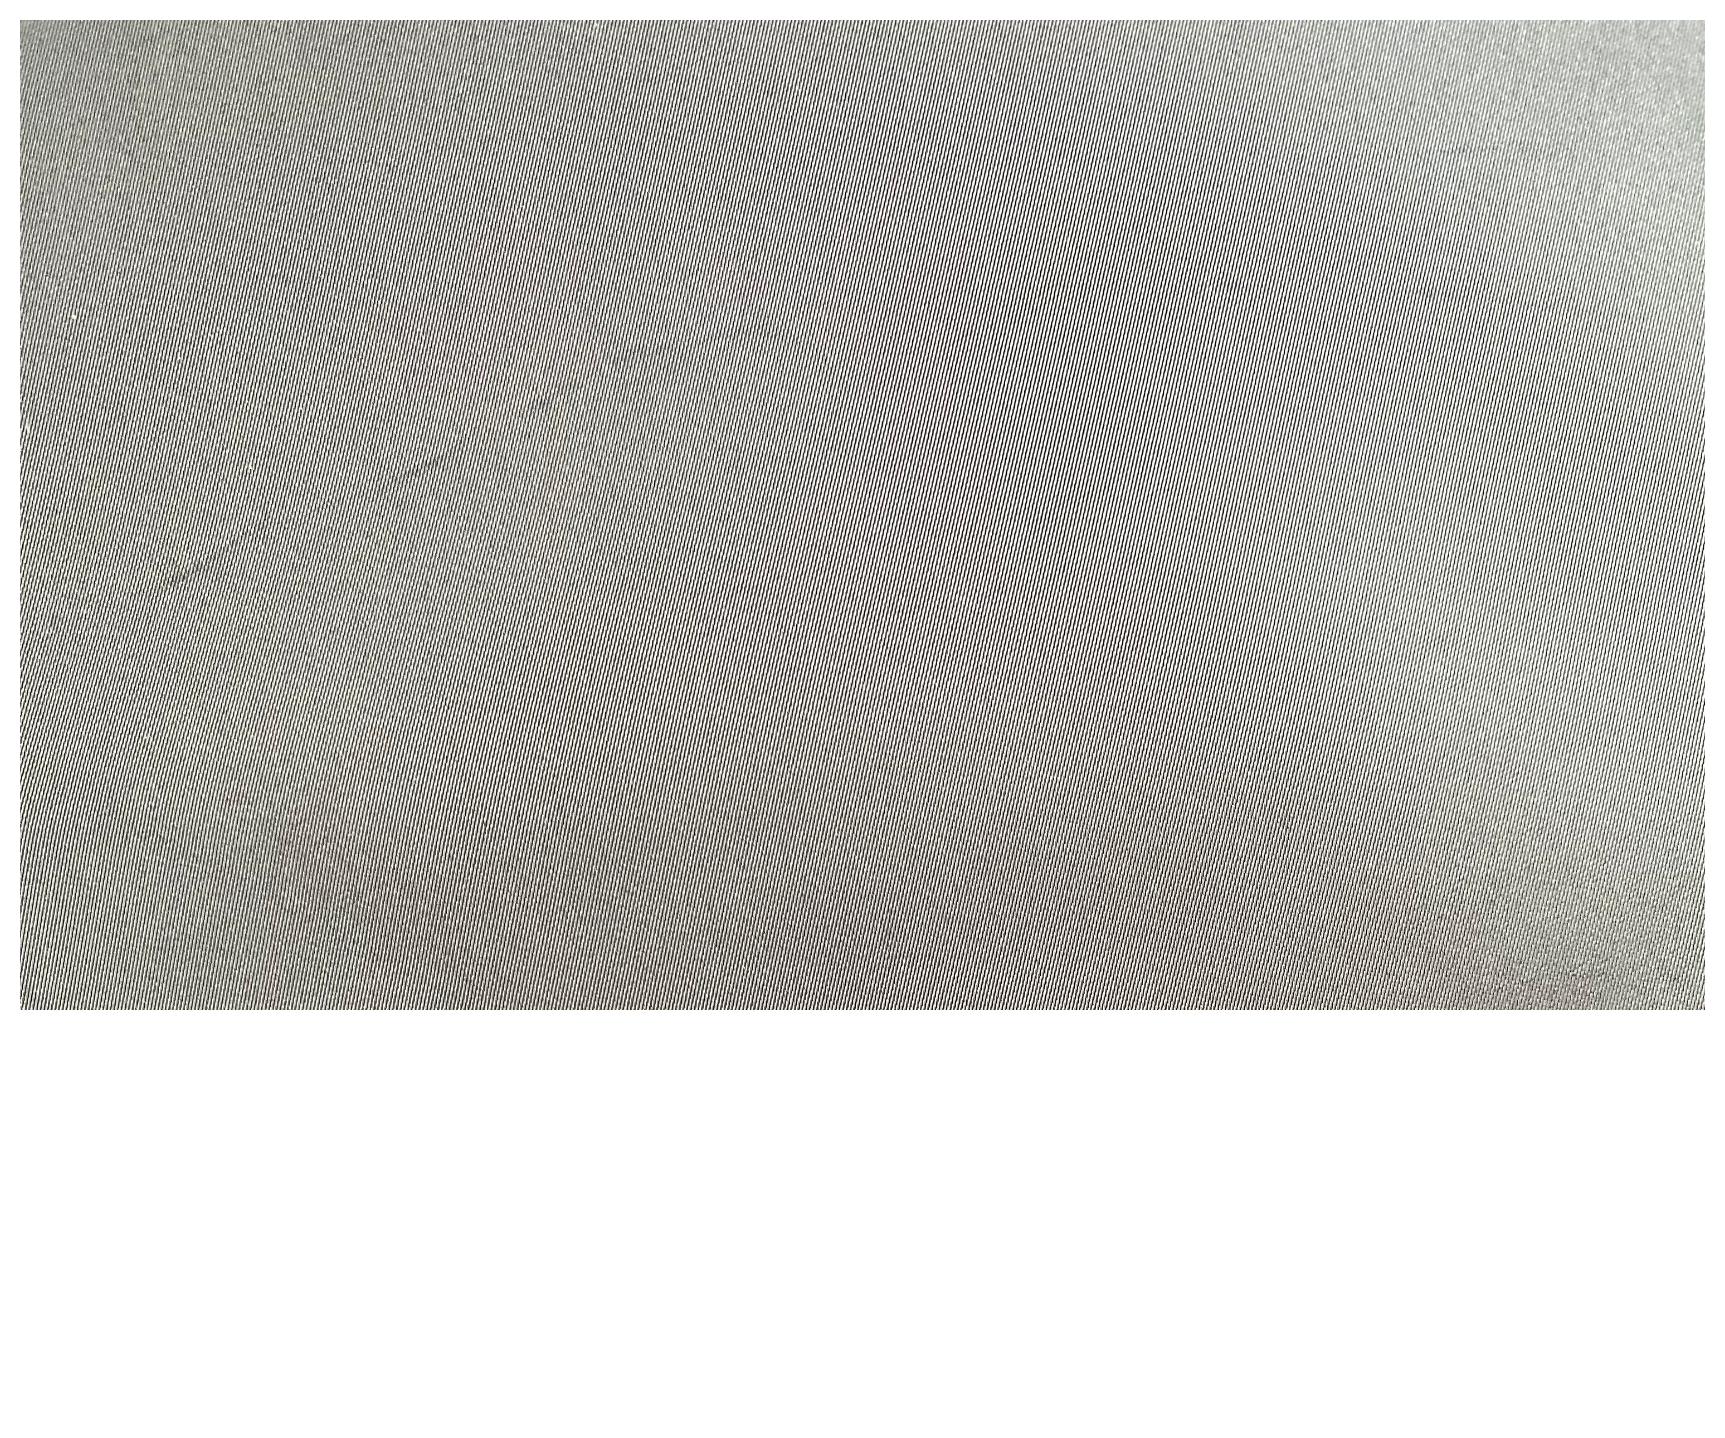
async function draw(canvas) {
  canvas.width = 1725
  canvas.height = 1438
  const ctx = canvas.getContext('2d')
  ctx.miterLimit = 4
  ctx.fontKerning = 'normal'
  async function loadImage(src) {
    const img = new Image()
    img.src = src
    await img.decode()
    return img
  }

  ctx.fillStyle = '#fff'
  ctx.fillRect(0, 0, 1725, 1438)
  ctx.drawImage(await loadImage('image0.png'), 20, 20, 1685, 990)
}

draw(document.querySelector('canvas'))
